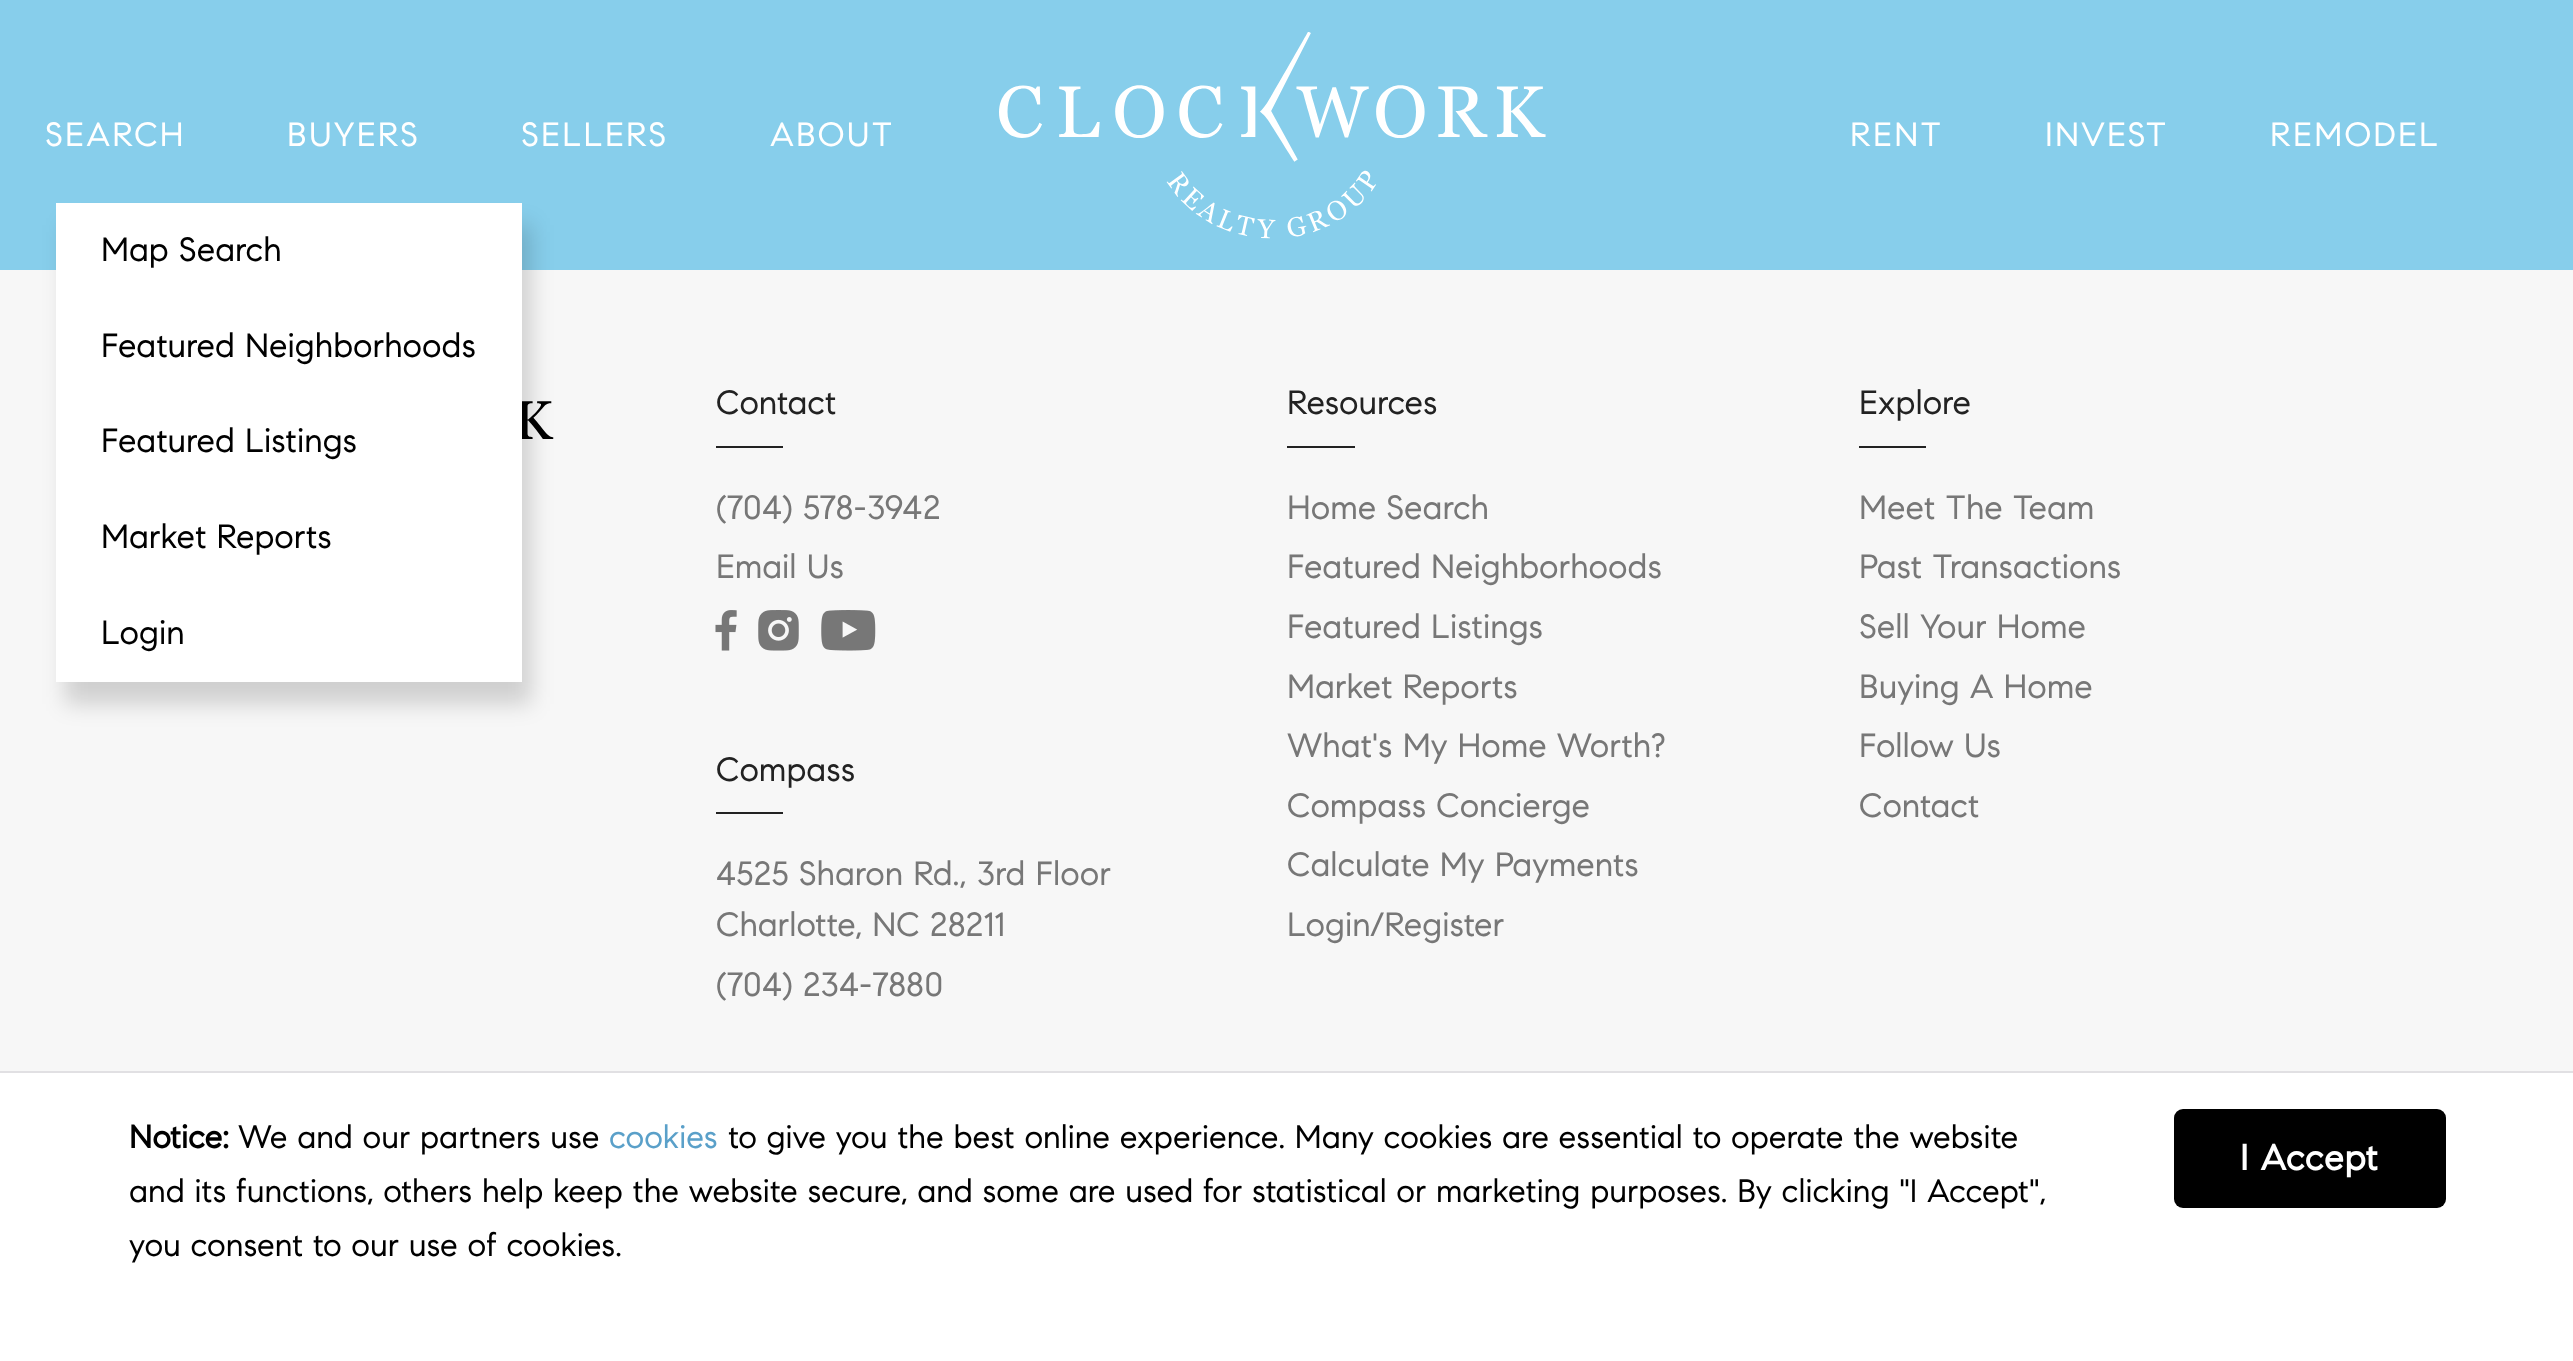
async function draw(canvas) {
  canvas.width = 2573
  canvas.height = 1361
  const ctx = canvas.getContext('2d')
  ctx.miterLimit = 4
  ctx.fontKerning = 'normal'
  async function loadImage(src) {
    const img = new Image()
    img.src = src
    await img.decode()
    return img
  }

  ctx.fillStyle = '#f7f7f7'
  ctx.fillRect(0, 0, 2573, 1361)
  ctx.fillStyle = '#87ceeb'
  ctx.fillRect(0, 0, 2573, 270)
  ctx.drawImage(await loadImage('image0.png'), 999, 32, 547, 207)
  ctx.letterSpacing = '2.25px'
  ctx.font = '33.75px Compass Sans'
  ctx.fillStyle = '#fff'
  ctx.fillText('SEARCH', 45, 146)
  ctx.drawImage(await loadImage('image1.png'), 522, 401, 32, 38)
  ctx.fillStyle = '#00000029'
  ctx.filter = 'blur(11px)'
  ctx.beginPath()
  ctx.rect(65, 225, 466, 479)
  ctx.fill()
  ctx.filter = 'none'
  ctx.fillStyle = '#fff'
  ctx.fillRect(56, 203, 466, 479)
  ctx.letterSpacing = '0px'
  ctx.fillStyle = '#000'
  ctx.fillText('Map Search', 101, 261)
  ctx.fillText('Featured Neighborhoods', 101, 357)
  ctx.fillText('Featured Listings', 101, 452)
  ctx.fillText('Market Reports', 101, 548)
  ctx.fillText('Login', 101, 644)
  ctx.letterSpacing = '2.25px'
  ctx.fillStyle = '#fff'
  ctx.fillText('BUYERS', 287, 146)
  ctx.fillText('SELLERS', 521, 146)
  ctx.fillText('ABOUT', 770, 146)
  ctx.fillText('RENT', 1850, 146)
  ctx.fillText('INVEST', 2045, 146)
  ctx.fillText('REMODEL', 2270, 146)
  ctx.letterSpacing = '0px'
  ctx.fillStyle = '#222'
  ctx.fillText('Contact', 716, 414)
  ctx.fillRect(716, 446, 67, 2)
  ctx.fillStyle = '#777'
  ctx.fillText('(704) 578-3942', 716, 519)
  ctx.fillText('Email Us', 716, 578)
  ctx.drawImage(await loadImage('image2.png'), 715, 610, 22, 41)
  ctx.drawImage(await loadImage('image3.png'), 758, 610, 41, 41)
  ctx.drawImage(await loadImage('image4.png'), 821, 610, 55, 41)
  ctx.fillStyle = '#222'
  ctx.fillText('Compass', 716, 781)
  ctx.fillRect(716, 812, 67, 2)
  ctx.fillStyle = '#777'
  ctx.fillText('4525 Sharon Rd., 3rd Floor', 716, 885)
  ctx.fillText('Charlotte, NC 28211', 716, 936)
  ctx.fillText('(704) 234-7880', 716, 996)
  ctx.fillStyle = '#222'
  ctx.fillText('Resources', 1287, 414)
  ctx.fillRect(1287, 446, 68, 2)
  ctx.fillStyle = '#777'
  ctx.fillText('Home Search', 1287, 519)
  ctx.fillText('Featured Neighborhoods', 1287, 578)
  ctx.fillText('Featured Listings', 1287, 638)
  ctx.fillText('Market Reports', 1287, 698)
  ctx.fillText('What\'s My Home Worth?', 1287, 757)
  ctx.fillText('Compass Concierge', 1287, 817)
  ctx.fillText('Calculate My Payments', 1287, 876)
  ctx.fillText('Login/Register', 1287, 936)
  ctx.fillStyle = '#222'
  ctx.fillText('Explore', 1859, 414)
  ctx.fillRect(1859, 446, 67, 2)
  ctx.fillStyle = '#777'
  ctx.fillText('Meet The Team', 1859, 519)
  ctx.fillText('Past Transactions', 1859, 578)
  ctx.fillText('Sell Your Home', 1859, 638)
  ctx.fillText('Buying A Home', 1859, 698)
  ctx.fillText('Follow Us', 1859, 757)
  ctx.fillText('Contact', 1859, 817)
  ctx.fillStyle = '#fff'
  ctx.fillRect(0, 1073, 2573, 288)
  ctx.fillStyle = '#e1e0e3'
  ctx.fillRect(0, 1071, 2573, 2)
  ctx.font = 'bold 32.4px Compass Sans'
  ctx.fillStyle = '#000'
  ctx.fillText('Notice:', 129, 1148)
  ctx.font = '32.4px Compass Sans'
  ctx.fillText('We and our partners use', 238, 1148)
  ctx.fillStyle = '#5aa0c9'
  ctx.fillText('cookies', 609, 1148)
  ctx.fillStyle = '#000'
  ctx.fillText('to give you the best online experience. Many cookies are essential to operate the website', 728, 1148)
  ctx.fillText('and its functions, others help keep the website secure, and some are used for statistical or marketing purposes. By clicking "I Accept",', 129, 1202)
  ctx.fillText('you consent to our use of cookies.', 129, 1256)
  ctx.beginPath()
  ctx.roundRect(2174, 1109, 272, 99, 9)
  ctx.fill()
  ctx.letterSpacing = '0.75px'
  ctx.font = 'bold 36px Compass Sans'
  ctx.fillStyle = '#fff'
  ctx.fillText('I Accept', 2240, 1170)
}

draw(document.querySelector('canvas'))
